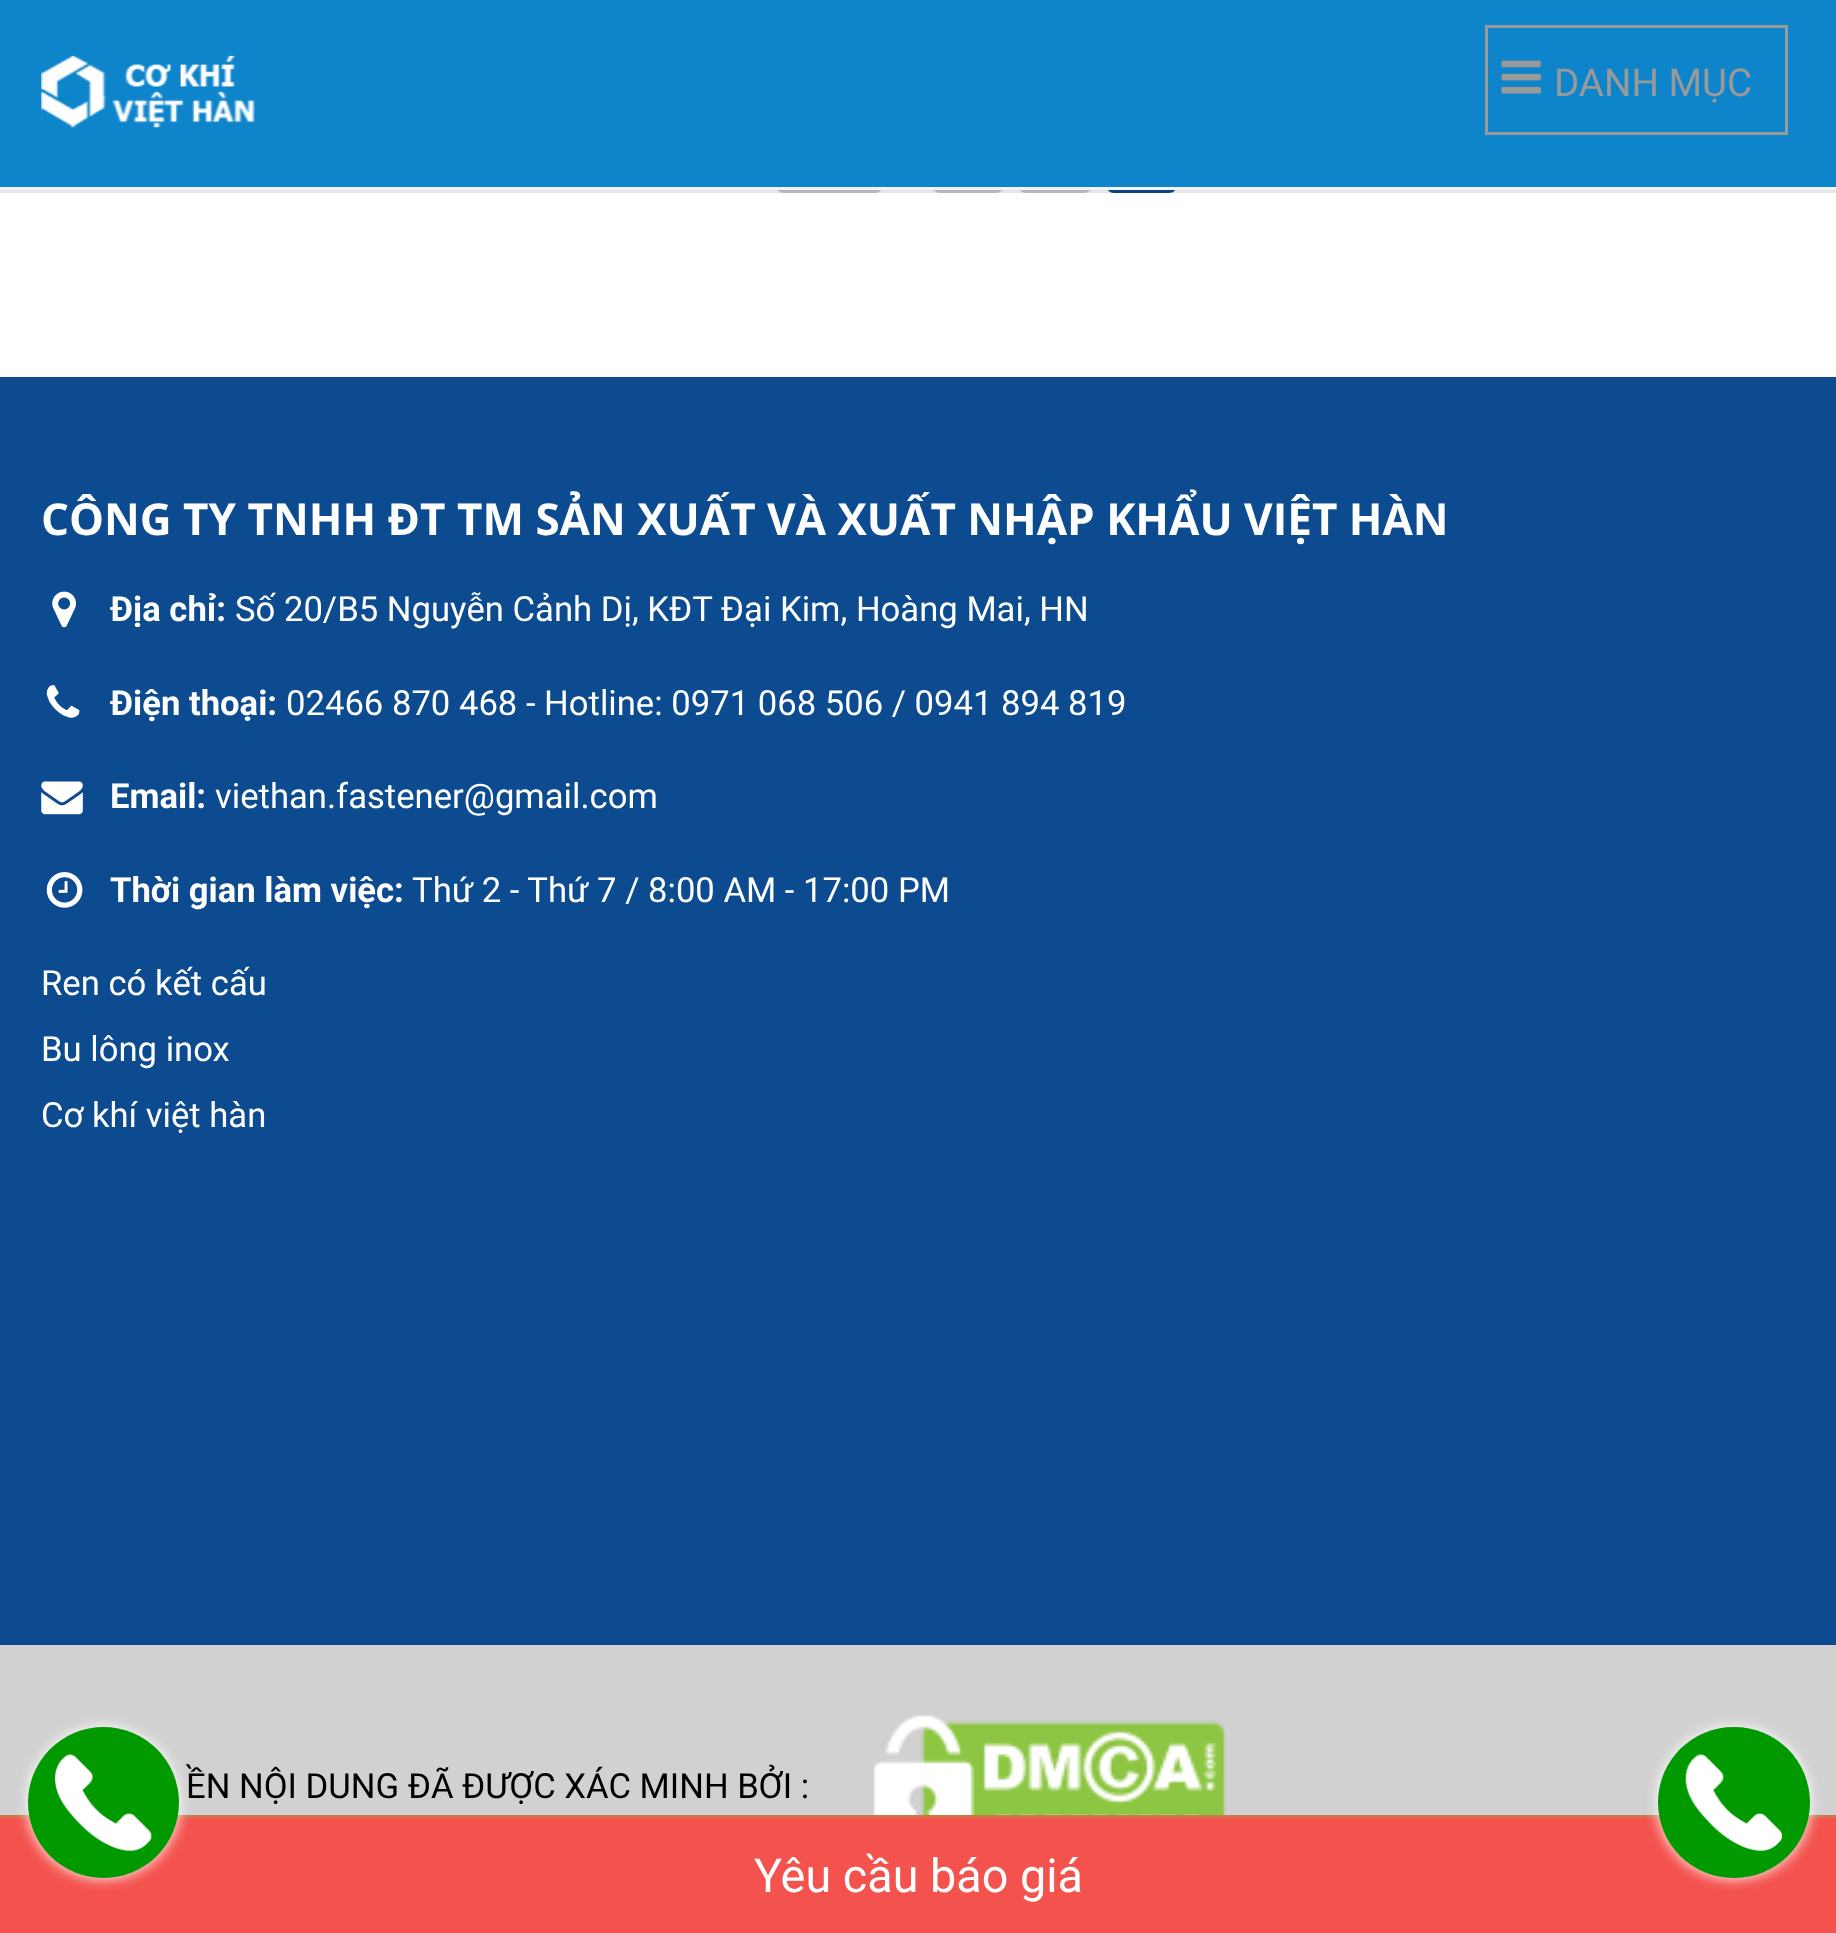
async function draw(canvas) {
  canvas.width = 1836
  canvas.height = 1933
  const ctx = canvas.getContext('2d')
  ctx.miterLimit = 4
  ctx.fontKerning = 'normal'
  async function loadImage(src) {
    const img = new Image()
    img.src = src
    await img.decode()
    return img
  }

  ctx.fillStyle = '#fff'
  ctx.fillRect(0, 0, 1836, 1933)
  ctx.beginPath()
  ctx.roundRect(777.5, 122.5, 104, 69, 6.5)
  ctx.strokeStyle = '#ccc'
  ctx.lineWidth = 3
  ctx.stroke()
  ctx.beginPath()
  ctx.roundRect(933.5, 122.5, 69, 69, 6.5)
  ctx.stroke()
  ctx.beginPath()
  ctx.roundRect(1019.5, 122.5, 71, 69, 6.5)
  ctx.stroke()
  ctx.beginPath()
  ctx.roundRect(1107.5, 122.5, 68, 69, 6.5)
  ctx.strokeStyle = '#0c4b90'
  ctx.stroke()
  ctx.fillStyle = '#0000001a'
  ctx.fillRect(0, 190, 1836, 3)
  ctx.fillStyle = '#0e84cb'
  ctx.fillRect(0, 0, 1836, 187)
  ctx.fillStyle = '#f3f3f3'
  ctx.fillRect(0, 187, 1836, 3)
  ctx.drawImage(await loadImage('image0.png'), 41, 55, 214, 73)
  ctx.strokeStyle = '#999'
  ctx.strokeRect(1486.5, 26.5, 300, 107)
  ctx.drawImage(await loadImage('image1.png'), 1501, 60, 40, 34)
  ctx.font = '38.5px Roboto'
  ctx.fillStyle = '#999'
  ctx.fillText('DANH MỤC', 1554, 96)
  ctx.fillStyle = '#0c4b90'
  ctx.fillRect(0, 377, 1836, 1268)
  ctx.font = 'bold 44px Open Sans'
  ctx.fillStyle = '#fff'
  ctx.fillText('CÔNG TY TNHH ĐT TM SẢN XUẤT VÀ XUẤT NHẬP KHẨU VIỆT HÀN', 41, 535)
  ctx.drawImage(await loadImage('image2.png'), 52, 591, 24, 37)
  ctx.font = 'bold 34.65px Roboto'
  ctx.fillText('Địa chỉ:', 110, 621)
  ctx.font = '34.65px Roboto'
  ctx.fillText('Số 20/B5 Nguyễn Cảnh Dị, KĐT Đại Kim, Hoàng Mai, HN', 235, 621)
  ctx.drawImage(await loadImage('image3.png'), 46, 685, 34, 33)
  ctx.font = 'bold 34.65px Roboto'
  ctx.fillText('Điện thoại:', 110, 715)
  ctx.font = '34.65px Roboto'
  ctx.fillText('02466 870 468 - Hotline: 0971 068 506 / 0941 894 819', 286, 715)
  ctx.drawImage(await loadImage('image4.png'), 41, 781, 42, 34)
  ctx.font = 'bold 34.65px Roboto'
  ctx.fillText('Email:', 110, 808)
  ctx.font = '34.65px Roboto'
  ctx.fillText('viethan.fastener@gmail.com', 215, 808)
  ctx.drawImage(await loadImage('image5.png'), 46, 872, 37, 36)
  ctx.font = 'bold 34.65px Roboto'
  ctx.fillText('Thời gian làm việc:', 110, 902)
  ctx.font = '34.65px Roboto'
  ctx.fillText('Thứ 2 - Thứ 7 / 8:00 AM - 17:00 PM', 412, 902)
  ctx.fillText('Ren có kết cấu', 41, 995)
  ctx.fillText('Bu lông inox', 41, 1061)
  ctx.fillText('Cơ khí việt hàn', 41, 1127)
  ctx.fillStyle = '#d1d1d1'
  ctx.fillRect(0, 1645, 1836, 170)
  ctx.fillStyle = '#000'
  ctx.fillText('ỀN NỘI DUNG ĐÃ ĐƯỢC XÁC MINH BỞI :', 186, 1798)
  ctx.drawImage(await loadImage('image6.png'), 873, 1714, 354, 101)
  ctx.fillStyle = '#f4524d'
  ctx.fillRect(0, 1818, 1836, 115)
  ctx.fillStyle = '#d2754c'
  ctx.fillRect(0, 1815, 1836, 3)
  ctx.fillStyle = '#fff'
  ctx.filter = 'blur(7px)'
  ctx.beginPath()
  ctx.roundRect(28, 1727, 151, 151, 75.5)
  ctx.fill()
  ctx.filter = 'none'
  ctx.fillStyle = '#090'
  ctx.beginPath()
  ctx.arc(103.5, 1802.5, 75.5, 0, 2 * Math.PI)
  ctx.fill()
  ctx.drawImage(await loadImage('image7.png'), 55, 1754, 97, 97)
  ctx.font = '46.75px Roboto'
  ctx.fillStyle = '#fff'
  ctx.fillText('Yêu cầu báo giá', 754, 1892)
  ctx.filter = 'blur(7px)'
  ctx.beginPath()
  ctx.roundRect(1658, 1727, 152, 151, 75.5)
  ctx.fill()
  ctx.filter = 'none'
  ctx.fillStyle = '#090'
  ctx.beginPath()
  ctx.roundRect(1658, 1727, 152, 151, 75.5)
  ctx.fill()
  ctx.drawImage(await loadImage('image8.png'), 1685, 1754, 97, 97)
}

draw(document.querySelector('canvas'))
